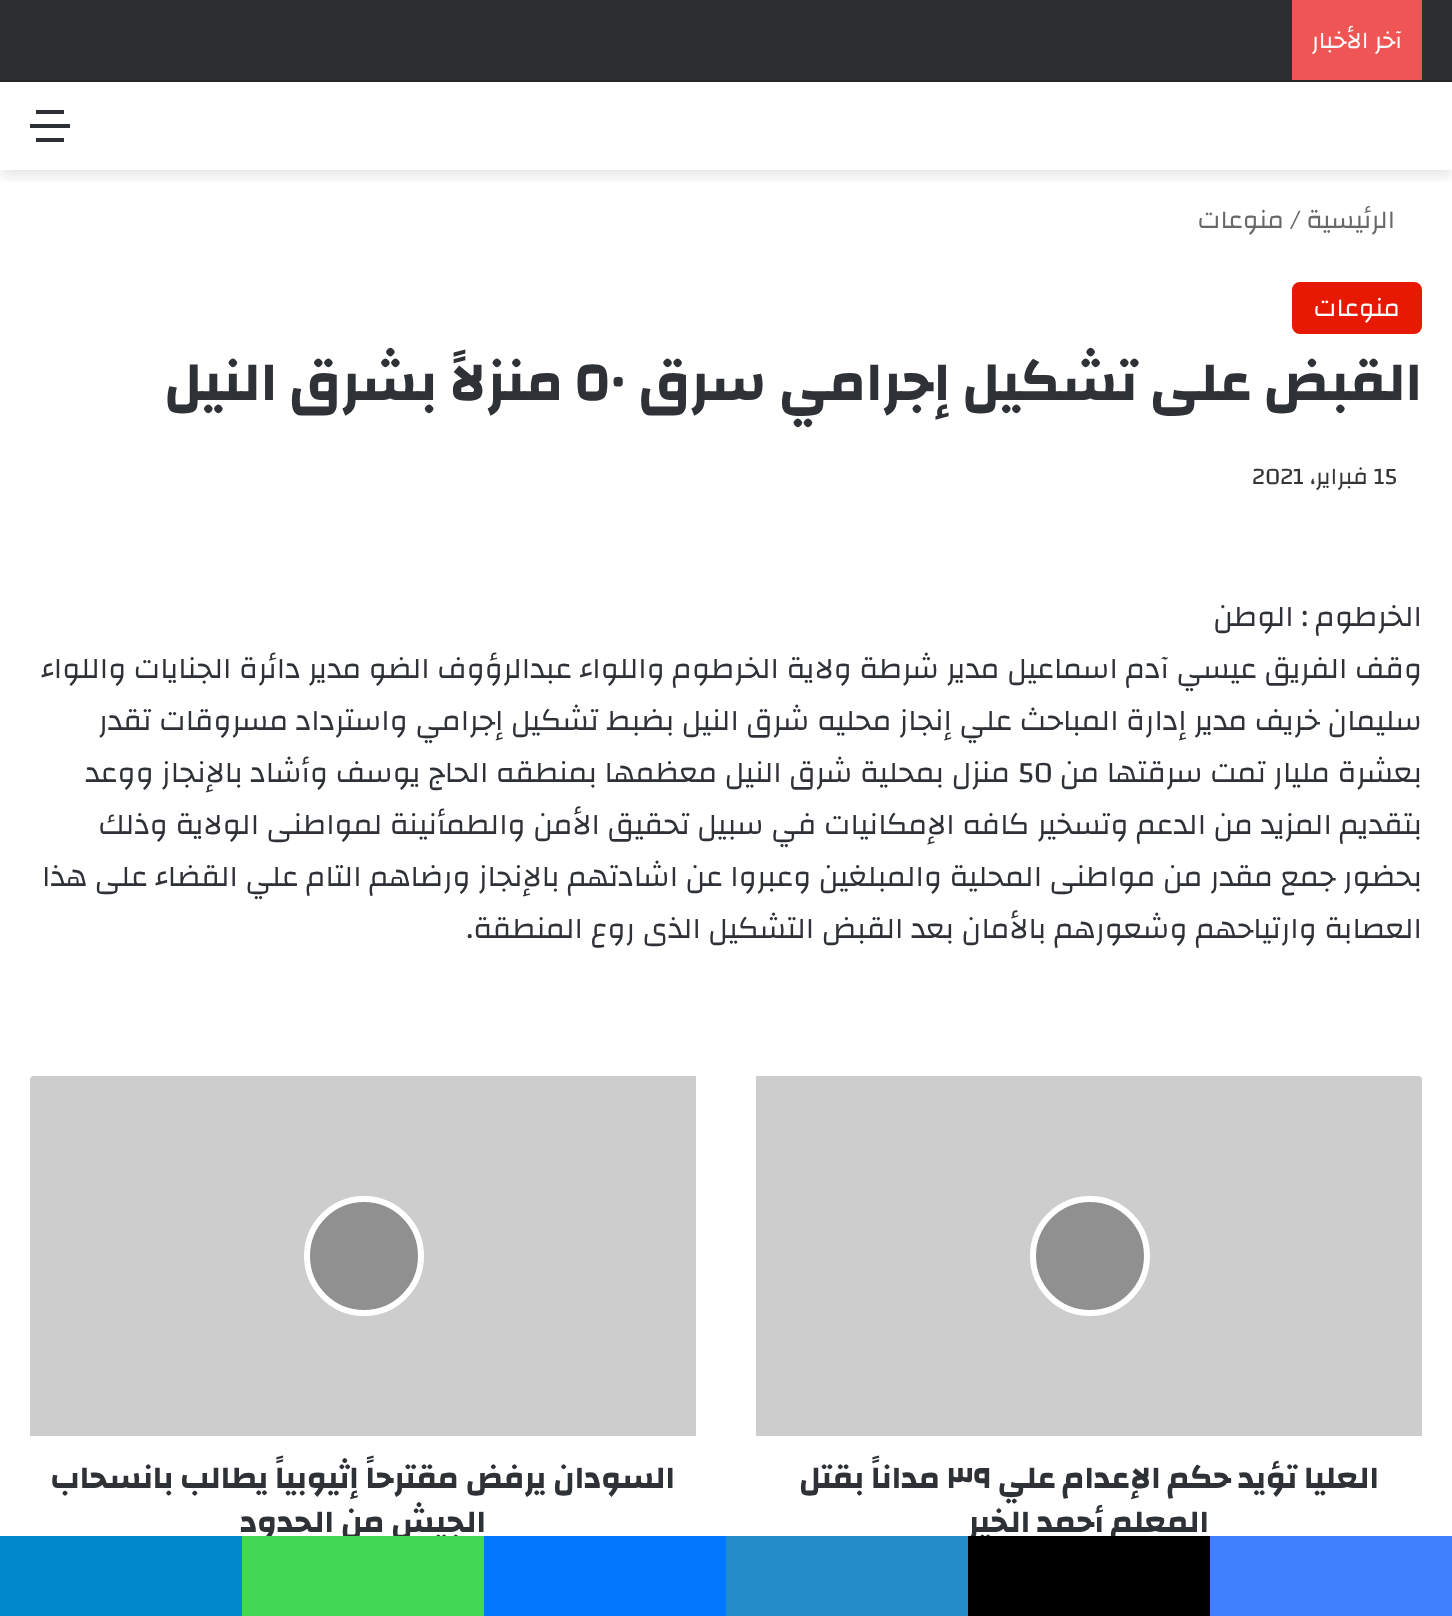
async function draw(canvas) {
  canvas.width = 1452
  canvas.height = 1616
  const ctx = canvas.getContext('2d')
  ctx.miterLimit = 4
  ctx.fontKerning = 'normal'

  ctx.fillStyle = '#fff'
  ctx.fillRect(0, 0, 1452, 1616)
  ctx.save()
  ctx.beginPath()
  ctx.rect(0, 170, 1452, 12)
  ctx.clip()
  ctx.fillStyle = '#0000001a'
  ctx.filter = 'blur(7px)'
  ctx.beginPath()
  ctx.rect(0, 88, 1452, 88)
  ctx.fill()
  ctx.filter = 'none'
  ctx.restore()
  ctx.fillStyle = '#2c2e32'
  ctx.fillRect(0, 0, 1452, 80)
  ctx.fillStyle = '#28292d'
  ctx.fillRect(0, 80, 1452, 2)
  ctx.fillStyle = '#f05555'
  ctx.fillRect(1292, 0, 130, 80)
  ctx.direction = 'rtl'
  ctx.font = '24px Changa'
  ctx.fillStyle = '#fff'
  ctx.fillText('آخر الأخبار', 1402, 48)
  ctx.fillStyle = '#2c2f34'
  ctx.fillRect(30, 124, 40, 4)
  ctx.fillRect(36, 110, 28, 4)
  ctx.fillRect(36, 138, 28, 4)
  ctx.font = '26px Changa'
  ctx.fillStyle = '#686868'
  ctx.fillText('الرئيسية', 1395, 228)
  ctx.direction = 'ltr'
  ctx.fillText('/', 1290, 228)
  ctx.direction = 'rtl'
  ctx.fillText('منوعات', 1284, 228)
  ctx.fillStyle = '#e81903'
  ctx.beginPath()
  ctx.roundRect(1292, 282, 130, 52, 8)
  ctx.fill()
  ctx.fillStyle = '#fff'
  ctx.fillText('منوعات', 1400, 316)
  ctx.font = 'bold 56px Changa'
  ctx.fillStyle = '#2e3136'
  ctx.fillText('القبض على تشكيل إجرامي سرق', 1422, 400)
  ctx.direction = 'ltr'
  ctx.fillText('٥٠', 575, 400)
  ctx.direction = 'rtl'
  ctx.fillText('منزلاً بشرق النيل', 563, 400)
  ctx.direction = 'ltr'
  ctx.font = '24px Changa'
  ctx.fillStyle = '#353535'
  ctx.fillText('15', 1374, 484)
  ctx.direction = 'rtl'
  ctx.fillText('فبراير،', 1368, 484)
  ctx.direction = 'ltr'
  ctx.fillText('2021', 1252, 484)
  ctx.direction = 'rtl'
  ctx.font = '30px Changa'
  ctx.fillStyle = '#2e3136'
  ctx.fillText('الخرطوم : الوطن', 1422, 626)
  ctx.fillText('وقف الفريق عيسي آدم اسماعيل مدير شرطة ولاية الخرطوم واللواء عبدالرؤوف الضو مدير دائرة الجنايات واللواء', 1422, 678)
  ctx.fillText('سليمان خريف مدير إدارة المباحث علي إنجاز محليه شرق النيل بضبط تشكيل إجرامي واسترداد مسروقات تقدر', 1422, 730)
  ctx.fillText('بعشرة مليار تمت سرقتها من', 1422, 782)
  ctx.direction = 'ltr'
  ctx.fillText('50', 1018, 782)
  ctx.direction = 'rtl'
  ctx.fillText('منزل بمحلية شرق النيل معظمها بمنطقه الحاج يوسف وأشاد بالإنجاز ووعد', 1010, 782)
  ctx.fillText('بتقديم المزيد من الدعم وتسخير كافه الإمكانيات في سبيل تحقيق الأمن والطمأنينة لمواطنى الولاية وذلك', 1422, 834)
  ctx.fillText('بحضور جمع مقدر من مواطنى المحلية والمبلغين وعبروا عن اشادتهم بالإنجاز ورضاهم التام علي القضاء على هذا', 1422, 886)
  ctx.fillText('العصابة وارتياحهم وشعورهم بالأمان بعد القبض التشكيل الذى روع المنطقة.', 1422, 938)
  ctx.fillStyle = '#cdcdcd'
  ctx.beginPath()
  ctx.roundRect(756, 1076, 666, 360, [0, 4, 0, 0])
  ctx.fill()
  ctx.fillStyle = '#909090'
  ctx.beginPath()
  ctx.arc(1090, 1256, 57, 0, 2 * Math.PI)
  ctx.fill()
  ctx.strokeStyle = '#fff'
  ctx.lineWidth = 6
  ctx.stroke()
  ctx.font = 'bold 32px Changa'
  ctx.fillStyle = '#2e3136'
  ctx.fillText('العليا تؤيد حكم الإعدام علي', 1379, 1488)
  ctx.direction = 'ltr'
  ctx.fillText('٣٩', 947, 1488)
  ctx.direction = 'rtl'
  ctx.fillText('مداناً بقتل', 940, 1488)
  ctx.fillText('المعلم أحمد الخير', 1209, 1532)
  ctx.fillStyle = '#cdcdcd'
  ctx.beginPath()
  ctx.roundRect(30, 1076, 666, 360, [4, 0, 0, 0])
  ctx.fill()
  ctx.fillStyle = '#909090'
  ctx.beginPath()
  ctx.arc(364, 1256, 57, 0, 2 * Math.PI)
  ctx.fill()
  ctx.stroke()
  ctx.fillStyle = '#2e3136'
  ctx.fillText('السودان يرفض مقترحاً إثيوبياً يطالب بانسحاب', 675, 1488)
  ctx.fillText('الجيش من الحدود', 486, 1532)
  ctx.fillStyle = '#4080ff'
  ctx.fillRect(1210, 1536, 242, 80)
  ctx.fillStyle = '#000'
  ctx.fillRect(968, 1536, 242, 80)
  ctx.fillStyle = '#238cc8'
  ctx.fillRect(726, 1536, 242, 80)
  ctx.fillStyle = '#0078ff'
  ctx.fillRect(484, 1536, 242, 80)
  ctx.fillStyle = '#43d854'
  ctx.fillRect(242, 1536, 242, 80)
  ctx.fillStyle = '#08c'
  ctx.fillRect(0, 1536, 242, 80)
}

draw(document.querySelector('canvas'))
